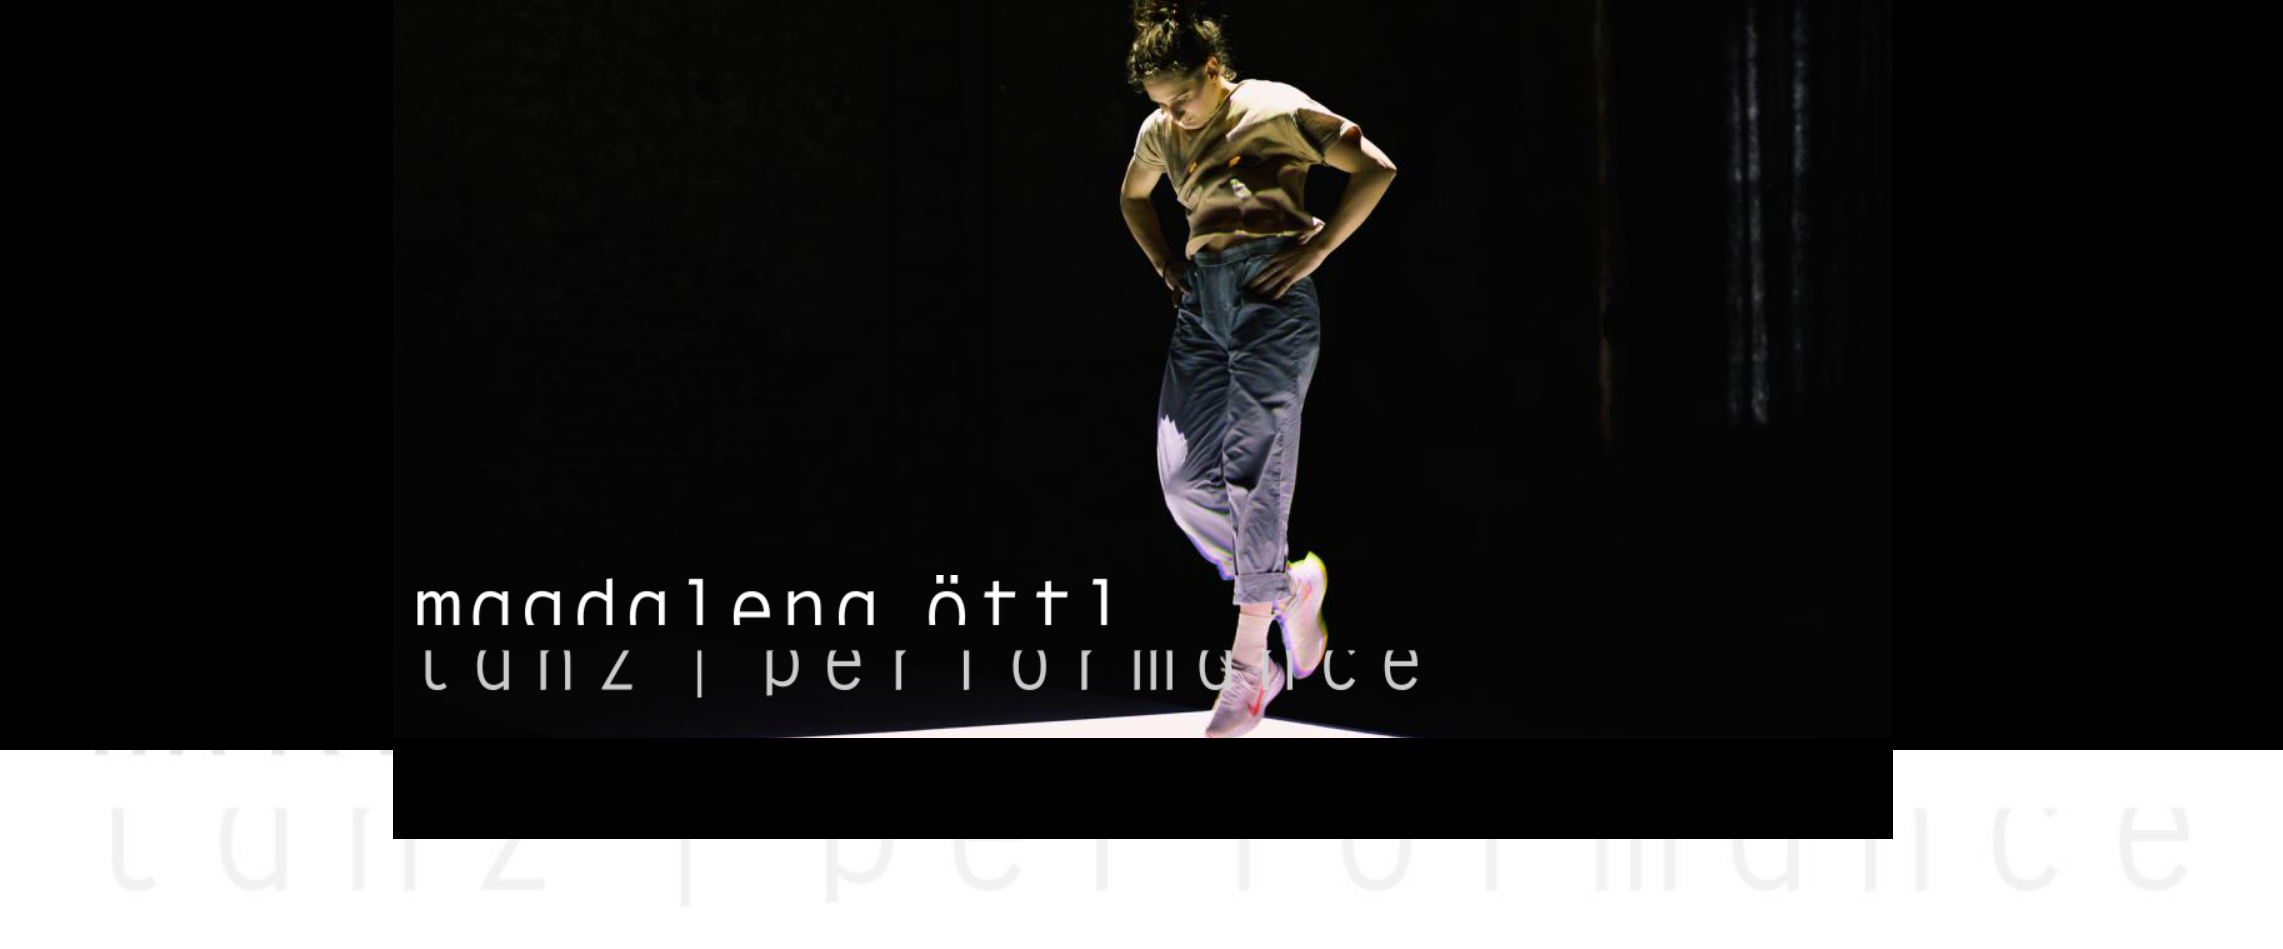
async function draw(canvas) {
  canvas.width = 2283
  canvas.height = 949
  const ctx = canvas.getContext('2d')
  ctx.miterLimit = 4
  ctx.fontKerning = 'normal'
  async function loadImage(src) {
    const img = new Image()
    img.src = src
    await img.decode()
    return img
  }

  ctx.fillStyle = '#fff'
  ctx.fillRect(0, 0, 2283, 949)
  ctx.drawImage(await loadImage('image0.png'), 94, 750, 2095, 158)
  ctx.fillStyle = '#000'
  ctx.fillRect(0, 0, 2283, 750)
  ctx.drawImage(await loadImage('image1.png'), 393, 0, 1499, 738)
  ctx.drawImage(await loadImage('image2.png'), 417, 575, 1001, 123)
  ctx.fillRect(393, 750, 1500, 89)
}

draw(document.querySelector('canvas'))
